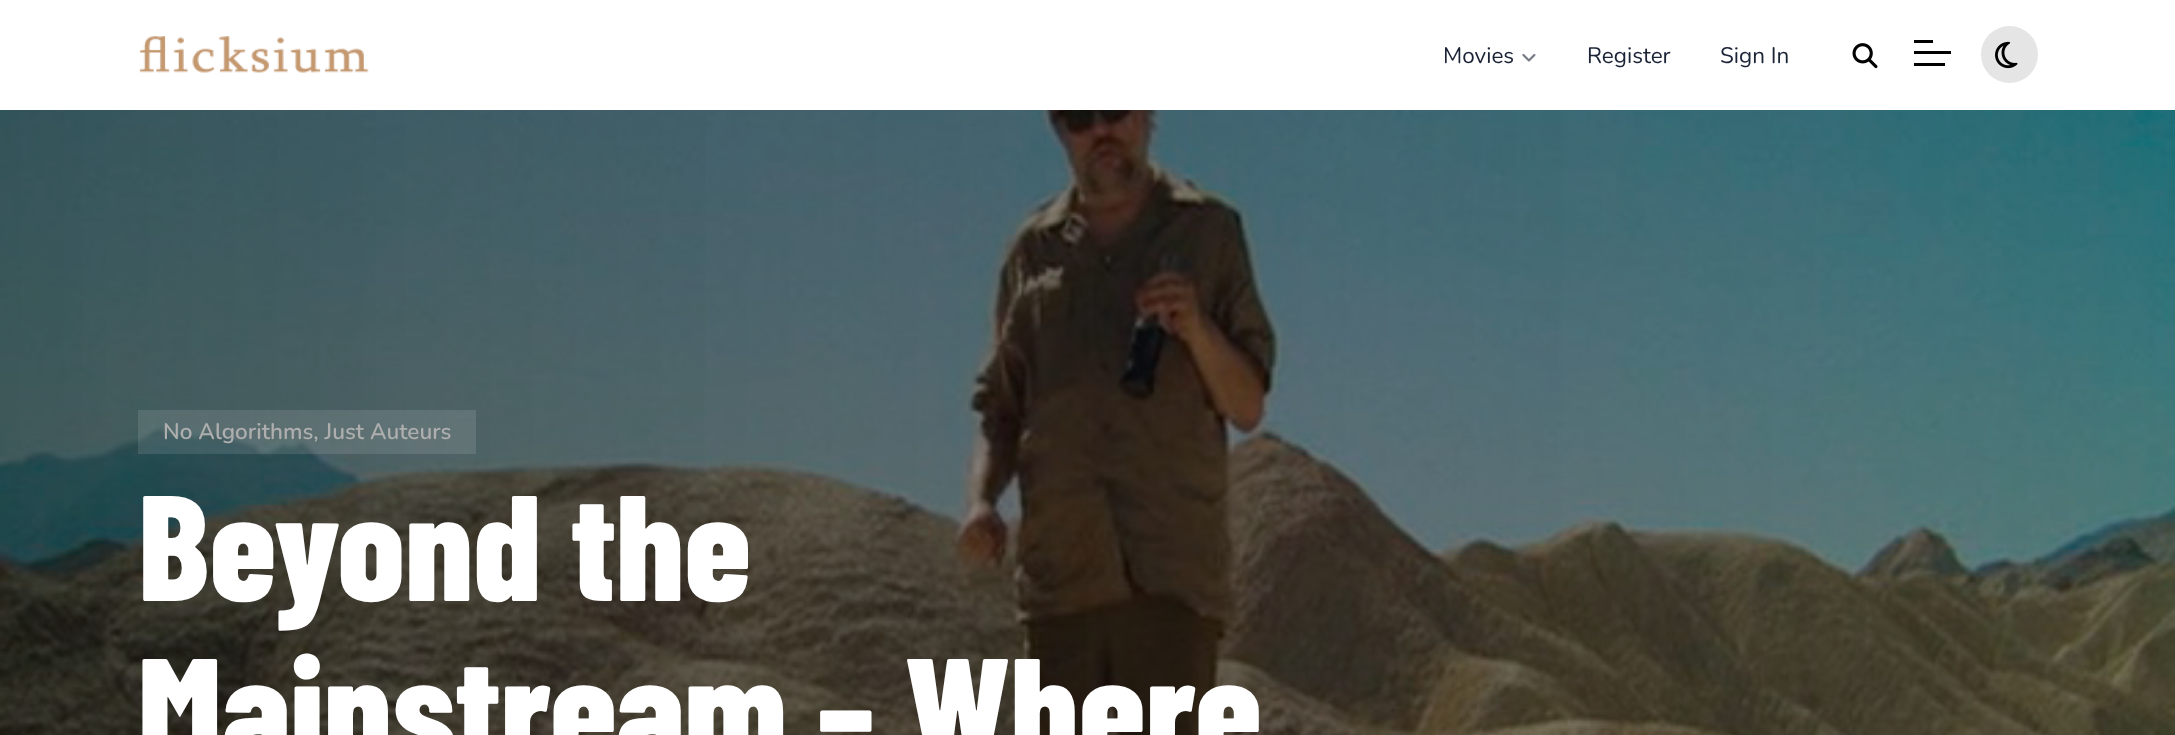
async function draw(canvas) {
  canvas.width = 2175
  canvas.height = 735
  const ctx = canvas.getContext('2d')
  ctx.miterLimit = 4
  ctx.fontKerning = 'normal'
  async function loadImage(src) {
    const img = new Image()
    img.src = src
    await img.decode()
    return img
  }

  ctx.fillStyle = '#fff'
  ctx.fillRect(0, 0, 2175, 735)
  ctx.drawImage(await loadImage('image0.png'), 139, 36, 230, 37)
  ctx.font = '22.5px Nunito'
  ctx.fillStyle = '#1b2336'
  ctx.fillText('Movies', 1443, 63)
  ctx.drawImage(await loadImage('image1.png'), 1522, 53, 14, 9)
  ctx.fillText('Register', 1587, 63)
  ctx.fillText('Sign In', 1720, 63)
  ctx.drawImage(await loadImage('image2.png'), 1852, 43, 26, 26)
  ctx.fillStyle = '#000'
  ctx.fillRect(1914, 63, 31, 3)
  ctx.fillRect(1914, 40, 19, 3)
  ctx.fillRect(1914, 51, 37, 3)
  ctx.fillStyle = '#e5e5e5'
  ctx.beginPath()
  ctx.arc(2009.5, 54.5, 28.5, 0, 2 * Math.PI)
  ctx.fill()
  ctx.drawImage(await loadImage('image3.png'), 1995, 41, 23, 28)
  ctx.drawImage(await loadImage('image4.png'), 0, 110, 2175, 625)
  ctx.fillStyle = '#ffffff1c'
  ctx.fillRect(138, 410, 338, 44)
  ctx.font = '600 22.5px Nunito'
  ctx.fillStyle = '#aeaeae'
  ctx.fillText('No Algorithms, Just Auteurs', 163, 439)
  ctx.font = '800 150px Barlow Condensed'
  ctx.fillStyle = '#fff'
  ctx.fillText('Beyond the', 138, 601)
  ctx.fillText('Mainstream – Where', 138, 764)
}

draw(document.querySelector('canvas'))
